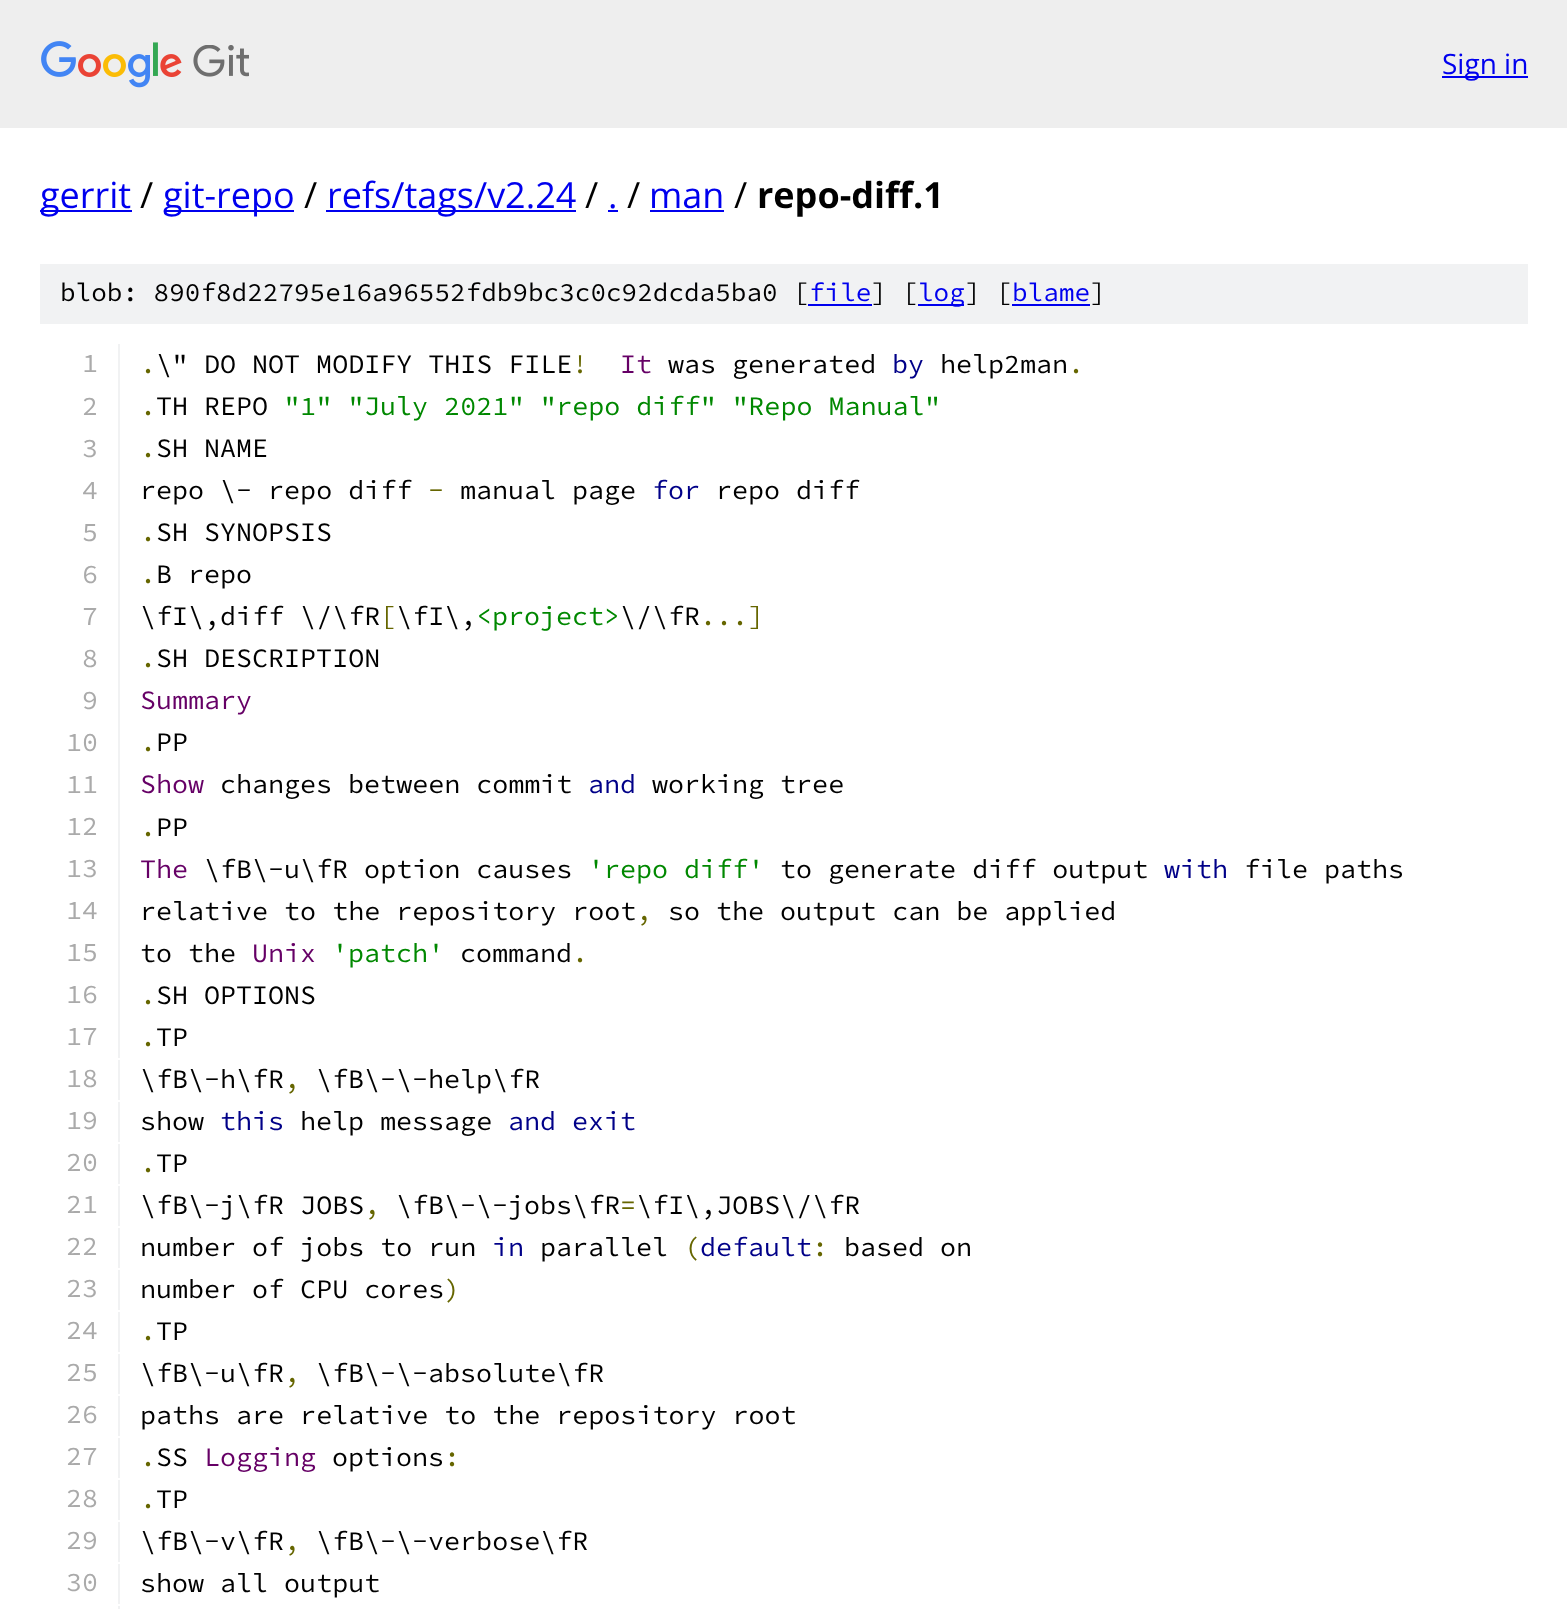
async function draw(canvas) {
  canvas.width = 1567
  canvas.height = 1609
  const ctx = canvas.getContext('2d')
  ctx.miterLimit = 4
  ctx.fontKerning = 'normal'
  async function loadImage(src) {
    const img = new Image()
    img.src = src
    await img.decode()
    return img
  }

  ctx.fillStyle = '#fff'
  ctx.fillRect(0, 0, 1567, 1609)
  ctx.fillStyle = '#eee'
  ctx.fillRect(0, 0, 1567, 128)
  ctx.drawImage(await loadImage('image0.png'), 41, 41, 208, 47)
  ctx.fillStyle = '#00e'
  ctx.fillRect(1442, 76, 86, 2)
  ctx.font = '28px Open Sans'
  ctx.fillText('Sign in', 1442, 74)
  ctx.fillRect(40, 210, 92, 2)
  ctx.font = '36px Open Sans'
  ctx.fillText('gerrit', 40, 208)
  ctx.fillStyle = '#000'
  ctx.fillText('/', 140, 208)
  ctx.fillStyle = '#00e'
  ctx.fillRect(164, 210, 130, 2)
  ctx.fillText('git-repo', 163, 208)
  ctx.fillStyle = '#000'
  ctx.fillText('/', 304, 208)
  ctx.fillStyle = '#00e'
  ctx.fillRect(326, 210, 250, 2)
  ctx.fillText('refs/tags/v2.24', 327, 208)
  ctx.fillStyle = '#000'
  ctx.fillText('/', 585, 208)
  ctx.fillStyle = '#00e'
  ctx.fillText('.', 608, 208)
  ctx.fillRect(608, 210, 10, 2)
  ctx.fillStyle = '#000'
  ctx.fillText('/', 627, 208)
  ctx.fillStyle = '#00e'
  ctx.fillText('man', 649, 208)
  ctx.fillRect(650, 210, 74, 2)
  ctx.fillStyle = '#000'
  ctx.fillText('/', 734, 208)
  ctx.font = 'bold 36px Open Sans'
  ctx.fillText('repo-diff.1', 757, 208)
  ctx.fillStyle = '#f1f2f3'
  ctx.fillRect(40, 264, 1488, 60)
  ctx.font = '200 26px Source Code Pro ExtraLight'
  ctx.fillStyle = '#000'
  ctx.fillText('blob: 890f8d22795e16a96552fdb9bc3c0c92dcda5ba0 [', 60, 301)
  ctx.fillStyle = '#00e'
  ctx.fillText('file', 809, 301)
  ctx.fillRect(808, 304, 64, 2)
  ctx.fillStyle = '#000'
  ctx.fillText('] [', 871, 301)
  ctx.fillStyle = '#00e'
  ctx.fillRect(918, 304, 46, 2)
  ctx.fillText('log', 918, 301)
  ctx.fillStyle = '#000'
  ctx.fillText('] [', 965, 301)
  ctx.fillStyle = '#00e'
  ctx.fillText('blame', 1012, 301)
  ctx.fillRect(1012, 304, 78, 2)
  ctx.fillStyle = '#000'
  ctx.fillText(']', 1090, 301)
  ctx.fillStyle = '#f1f2f3'
  ctx.fillRect(118, 344, 2, 714)
  ctx.font = '200 26.7px Source Code Pro ExtraLight'
  ctx.fillStyle = '#aaa'
  ctx.fillText('1', 82, 372)
  ctx.fillStyle = '#660'
  ctx.fillText('.', 140, 373)
  ctx.fillStyle = '#000'
  ctx.fillText('\\" DO NOT MODIFY THIS FILE', 156, 373)
  ctx.fillStyle = '#660'
  ctx.fillText('!', 572, 373)
  ctx.fillStyle = '#606'
  ctx.fillText('It', 620, 373)
  ctx.fillStyle = '#000'
  ctx.fillText('was generated', 668, 373)
  ctx.fillStyle = '#008'
  ctx.fillText('by', 892, 373)
  ctx.fillStyle = '#000'
  ctx.fillText('help2man', 940, 373)
  ctx.fillStyle = '#660'
  ctx.fillText('.', 1068, 373)
  ctx.fillStyle = '#aaa'
  ctx.fillText('2', 82, 415)
  ctx.fillStyle = '#660'
  ctx.fillText('.', 140, 415)
  ctx.fillStyle = '#000'
  ctx.fillText('TH REPO', 156, 415)
  ctx.fillStyle = '#080'
  ctx.fillText('"1" "July 2021" "repo diff" "Repo Manual"', 284, 415)
  ctx.fillStyle = '#aaa'
  ctx.fillText('3', 82, 457)
  ctx.fillStyle = '#660'
  ctx.fillText('.', 140, 457)
  ctx.fillStyle = '#000'
  ctx.fillText('SH NAME', 156, 457)
  ctx.fillStyle = '#aaa'
  ctx.fillText('4', 82, 499)
  ctx.fillStyle = '#000'
  ctx.fillText('repo \\- repo diff', 140, 499)
  ctx.fillStyle = '#660'
  ctx.fillText('-', 428, 499)
  ctx.fillStyle = '#000'
  ctx.fillText('manual page', 460, 499)
  ctx.fillStyle = '#008'
  ctx.fillText('for', 652, 499)
  ctx.fillStyle = '#000'
  ctx.fillText('repo diff', 716, 499)
  ctx.fillStyle = '#aaa'
  ctx.fillText('5', 82, 541)
  ctx.fillStyle = '#660'
  ctx.fillText('.', 140, 541)
  ctx.fillStyle = '#000'
  ctx.fillText('SH SYNOPSIS', 156, 541)
  ctx.fillStyle = '#aaa'
  ctx.fillText('6', 82, 583)
  ctx.fillStyle = '#660'
  ctx.fillText('.', 140, 583)
  ctx.fillStyle = '#000'
  ctx.fillText('B repo', 156, 583)
  ctx.fillStyle = '#aaa'
  ctx.fillText('7', 82, 625)
  ctx.fillStyle = '#000'
  ctx.fillText('\\fI\\,diff \\/\\fR \\fI\\,', 140, 625)
  ctx.fillStyle = '#080'
  ctx.fillText('<project>', 476, 625)
  ctx.fillStyle = '#000'
  ctx.fillText('\\/\\fR', 620, 625)
  ctx.fillStyle = '#660'
  ctx.fillText('[', 380, 625)
  ctx.fillText('...]', 700, 625)
  ctx.fillStyle = '#aaa'
  ctx.fillText('8', 82, 667)
  ctx.fillStyle = '#660'
  ctx.fillText('.', 140, 667)
  ctx.fillStyle = '#000'
  ctx.fillText('SH DESCRIPTION', 156, 667)
  ctx.fillStyle = '#aaa'
  ctx.fillText('9', 82, 709)
  ctx.fillStyle = '#606'
  ctx.fillText('Summary', 140, 709)
  ctx.fillStyle = '#aaa'
  ctx.fillText('10', 66, 751)
  ctx.fillStyle = '#660'
  ctx.fillText('.', 140, 751)
  ctx.fillStyle = '#000'
  ctx.fillText('PP', 156, 751)
  ctx.fillStyle = '#aaa'
  ctx.fillText('11', 66, 793)
  ctx.fillStyle = '#606'
  ctx.fillText('Show', 140, 793)
  ctx.fillStyle = '#000'
  ctx.fillText('changes between commit', 220, 793)
  ctx.fillStyle = '#008'
  ctx.fillText('and', 588, 793)
  ctx.fillStyle = '#000'
  ctx.fillText('working tree', 652, 793)
  ctx.fillStyle = '#aaa'
  ctx.fillText('12', 66, 835)
  ctx.fillStyle = '#660'
  ctx.fillText('.', 140, 836)
  ctx.fillStyle = '#000'
  ctx.fillText('PP', 156, 836)
  ctx.fillStyle = '#aaa'
  ctx.fillText('13', 66, 877)
  ctx.fillStyle = '#606'
  ctx.fillText('The', 140, 878)
  ctx.fillStyle = '#000'
  ctx.fillText('\\fB\\-u\\fR option causes', 204, 878)
  ctx.fillStyle = '#080'
  ctx.fillText('\'repo diff\'', 588, 878)
  ctx.fillStyle = '#000'
  ctx.fillText('to generate diff output', 780, 878)
  ctx.fillStyle = '#008'
  ctx.fillText('with', 1164, 878)
  ctx.fillStyle = '#000'
  ctx.fillText('file paths', 1244, 878)
  ctx.fillStyle = '#aaa'
  ctx.fillText('14', 66, 919)
  ctx.fillStyle = '#000'
  ctx.fillText('relative to the repository root', 140, 920)
  ctx.fillStyle = '#660'
  ctx.fillText(',', 636, 920)
  ctx.fillStyle = '#000'
  ctx.fillText('so the output can be applied', 668, 920)
  ctx.fillStyle = '#aaa'
  ctx.fillText('15', 66, 961)
  ctx.fillStyle = '#000'
  ctx.fillText('to the', 140, 962)
  ctx.fillStyle = '#606'
  ctx.fillText('Unix', 252, 962)
  ctx.fillStyle = '#080'
  ctx.fillText('\'patch\'', 332, 962)
  ctx.fillStyle = '#000'
  ctx.fillText('command', 460, 962)
  ctx.fillStyle = '#660'
  ctx.fillText('.', 572, 962)
  ctx.fillStyle = '#aaa'
  ctx.fillText('16', 66, 1003)
  ctx.fillStyle = '#660'
  ctx.fillText('.', 140, 1004)
  ctx.fillStyle = '#000'
  ctx.fillText('SH OPTIONS', 156, 1004)
  ctx.fillStyle = '#aaa'
  ctx.fillText('17', 66, 1045)
  ctx.fillStyle = '#660'
  ctx.fillText('.', 140, 1046)
  ctx.fillStyle = '#000'
  ctx.fillText('TP', 156, 1046)
  ctx.fillStyle = '#f1f2f3'
  ctx.fillRect(118, 1060, 2, 40)
  ctx.fillStyle = '#aaa'
  ctx.fillText('18', 66, 1087)
  ctx.fillStyle = '#000'
  ctx.fillText('\\fB\\-h\\fR', 140, 1088)
  ctx.fillStyle = '#660'
  ctx.fillText(',', 284, 1088)
  ctx.fillStyle = '#000'
  ctx.fillText('\\fB\\-\\-help\\fR', 316, 1088)
  ctx.fillStyle = '#f1f2f3'
  ctx.fillRect(118, 1102, 2, 40)
  ctx.fillStyle = '#aaa'
  ctx.fillText('19', 66, 1129)
  ctx.fillStyle = '#000'
  ctx.fillText('show', 140, 1130)
  ctx.fillStyle = '#008'
  ctx.fillText('this', 220, 1130)
  ctx.fillStyle = '#000'
  ctx.fillText('help message', 300, 1130)
  ctx.fillStyle = '#008'
  ctx.fillText('and exit', 508, 1130)
  ctx.fillStyle = '#f1f2f3'
  ctx.fillRect(118, 1144, 2, 40)
  ctx.fillStyle = '#aaa'
  ctx.fillText('20', 66, 1171)
  ctx.fillStyle = '#660'
  ctx.fillText('.', 140, 1172)
  ctx.fillStyle = '#000'
  ctx.fillText('TP', 156, 1172)
  ctx.fillStyle = '#f1f2f3'
  ctx.fillRect(118, 1186, 2, 40)
  ctx.fillStyle = '#aaa'
  ctx.fillText('21', 66, 1213)
  ctx.fillStyle = '#000'
  ctx.fillText('\\fB\\-j\\fR JOBS', 140, 1214)
  ctx.fillText('\\fB\\-\\-jobs\\fR \\fI\\,JOBS\\/\\fR', 396, 1214)
  ctx.fillStyle = '#660'
  ctx.fillText('=', 620, 1214)
  ctx.fillText(',', 364, 1214)
  ctx.fillStyle = '#f1f2f3'
  ctx.fillRect(118, 1228, 2, 40)
  ctx.fillStyle = '#aaa'
  ctx.fillText('22', 66, 1255)
  ctx.fillStyle = '#000'
  ctx.fillText('number of jobs to run', 140, 1256)
  ctx.fillStyle = '#008'
  ctx.fillText('in', 492, 1256)
  ctx.fillStyle = '#000'
  ctx.fillText('parallel', 540, 1256)
  ctx.fillStyle = '#660'
  ctx.fillText('(', 684, 1256)
  ctx.fillStyle = '#008'
  ctx.fillText('default', 700, 1256)
  ctx.fillStyle = '#660'
  ctx.fillText(':', 812, 1256)
  ctx.fillStyle = '#000'
  ctx.fillText('based on', 844, 1256)
  ctx.fillStyle = '#f1f2f3'
  ctx.fillRect(118, 1270, 2, 40)
  ctx.fillStyle = '#aaa'
  ctx.fillText('23', 66, 1297)
  ctx.fillStyle = '#000'
  ctx.fillText('number of CPU cores', 140, 1298)
  ctx.fillStyle = '#660'
  ctx.fillText(')', 444, 1298)
  ctx.fillStyle = '#f1f2f3'
  ctx.fillRect(118, 1312, 2, 40)
  ctx.fillStyle = '#aaa'
  ctx.fillText('24', 66, 1339)
  ctx.fillStyle = '#660'
  ctx.fillText('.', 140, 1340)
  ctx.fillStyle = '#000'
  ctx.fillText('TP', 156, 1340)
  ctx.fillStyle = '#f1f2f3'
  ctx.fillRect(118, 1354, 2, 40)
  ctx.fillStyle = '#aaa'
  ctx.fillText('25', 66, 1381)
  ctx.fillStyle = '#000'
  ctx.fillText('\\fB\\-u\\fR', 140, 1382)
  ctx.fillStyle = '#660'
  ctx.fillText(',', 284, 1382)
  ctx.fillStyle = '#000'
  ctx.fillText('\\fB\\-\\-absolute\\fR', 316, 1382)
  ctx.fillStyle = '#f1f2f3'
  ctx.fillRect(118, 1396, 2, 40)
  ctx.fillStyle = '#aaa'
  ctx.fillText('26', 66, 1423)
  ctx.fillStyle = '#000'
  ctx.fillText('paths are relative to the repository root', 140, 1424)
  ctx.fillStyle = '#f1f2f3'
  ctx.fillRect(118, 1438, 2, 40)
  ctx.fillStyle = '#aaa'
  ctx.fillText('27', 66, 1465)
  ctx.fillStyle = '#660'
  ctx.fillText('.', 140, 1466)
  ctx.fillStyle = '#000'
  ctx.fillText('SS', 156, 1466)
  ctx.fillStyle = '#606'
  ctx.fillText('Logging', 204, 1466)
  ctx.fillStyle = '#000'
  ctx.fillText('options', 332, 1466)
  ctx.fillStyle = '#660'
  ctx.fillText(':', 444, 1466)
  ctx.fillStyle = '#f1f2f3'
  ctx.fillRect(118, 1480, 2, 40)
  ctx.fillStyle = '#aaa'
  ctx.fillText('28', 66, 1507)
  ctx.fillStyle = '#660'
  ctx.fillText('.', 140, 1508)
  ctx.fillStyle = '#000'
  ctx.fillText('TP', 156, 1508)
  ctx.fillStyle = '#f1f2f3'
  ctx.fillRect(118, 1522, 2, 40)
  ctx.fillStyle = '#aaa'
  ctx.fillText('29', 66, 1549)
  ctx.fillStyle = '#000'
  ctx.fillText('\\fB\\-v\\fR', 140, 1550)
  ctx.fillStyle = '#660'
  ctx.fillText(',', 284, 1550)
  ctx.fillStyle = '#000'
  ctx.fillText('\\fB\\-\\-verbose\\fR', 316, 1550)
  ctx.fillStyle = '#f1f2f3'
  ctx.fillRect(118, 1564, 2, 40)
  ctx.fillStyle = '#aaa'
  ctx.fillText('30', 66, 1591)
  ctx.fillStyle = '#000'
  ctx.fillText('show all output', 140, 1592)
  ctx.fillStyle = '#f1f2f3'
  ctx.fillRect(118, 1606, 2, 3)
}

draw(document.querySelector('canvas'))
